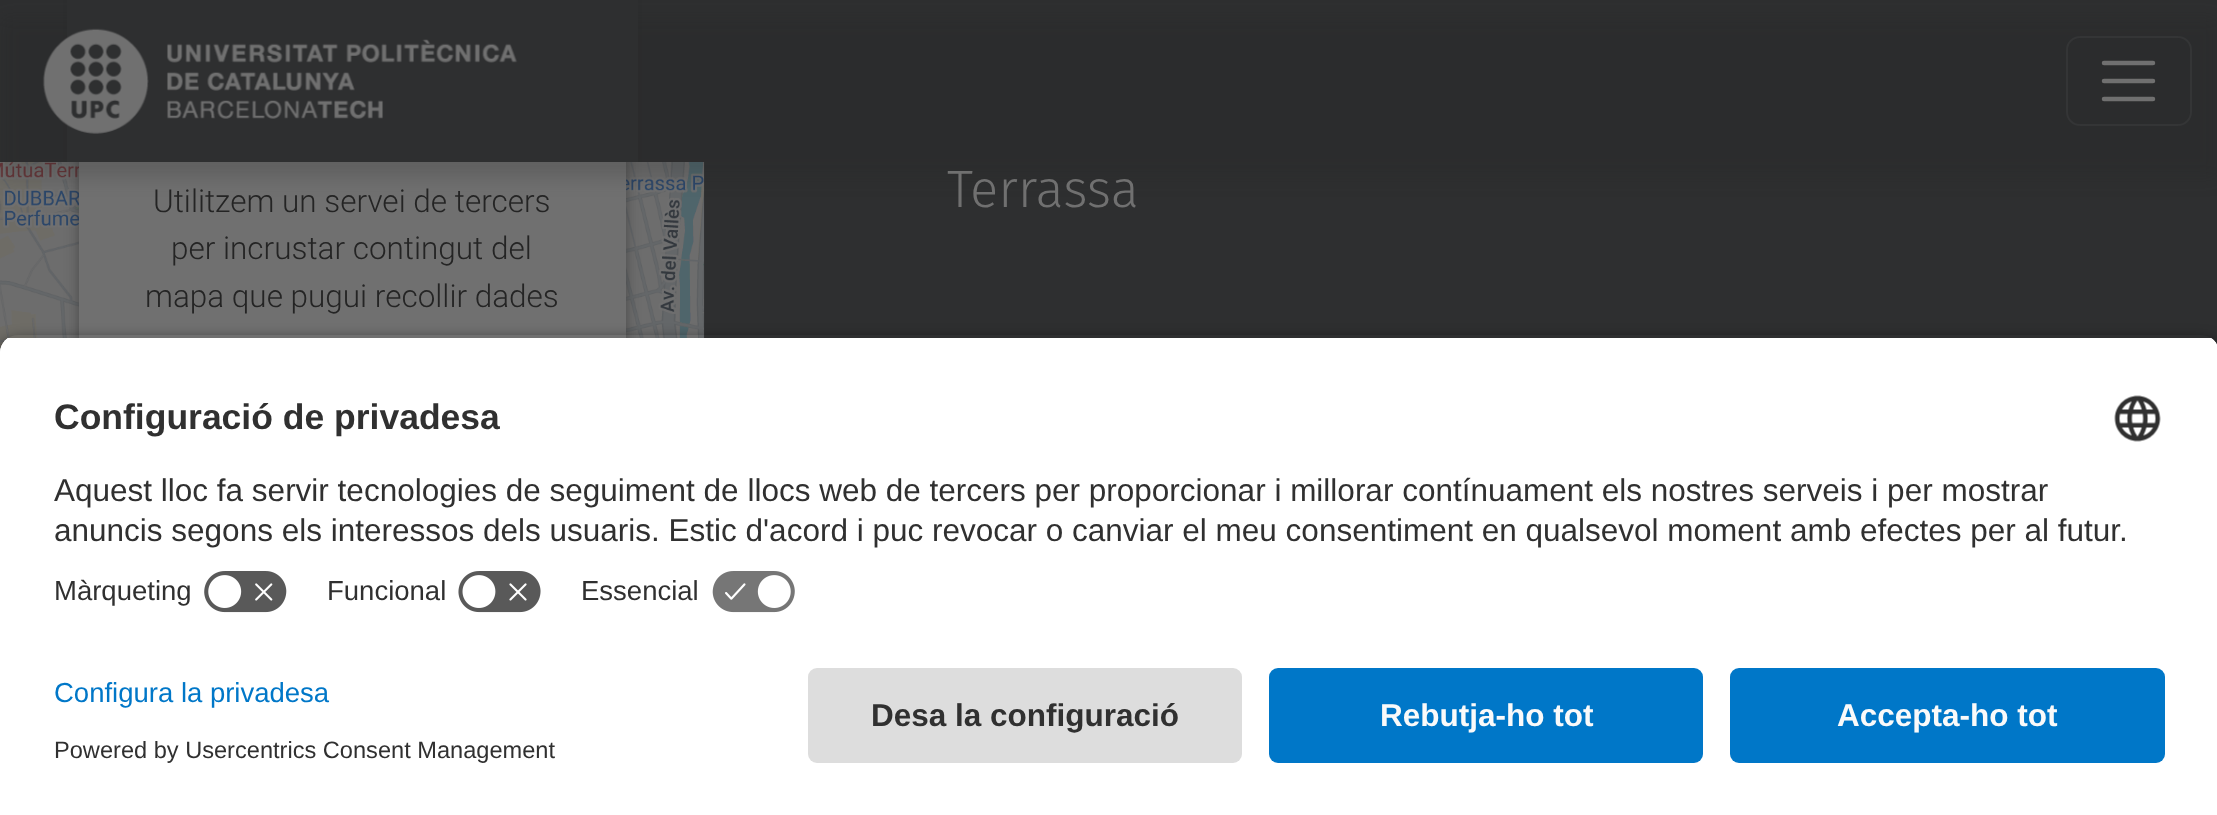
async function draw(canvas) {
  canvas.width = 2217
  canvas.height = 815
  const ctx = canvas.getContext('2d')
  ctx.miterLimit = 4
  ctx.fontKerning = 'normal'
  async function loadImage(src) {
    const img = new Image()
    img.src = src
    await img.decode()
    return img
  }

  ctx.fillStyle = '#2e2f30'
  ctx.fillRect(0, 0, 2217, 815)
  ctx.drawImage(await loadImage('image1.png'), 0, 162, 705, 191)
  ctx.fillStyle = '#24242480'
  ctx.filter = 'blur(7px)'
  ctx.beginPath()
  ctx.roundRect(79, -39, 547, 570, 18)
  ctx.fill()
  ctx.filter = 'none'
  ctx.fillStyle = '#707070'
  ctx.fillRect(79, 162, 547, 176)
  ctx.fillStyle = '#24242433'
  ctx.filter = 'blur(9px)'
  ctx.beginPath()
  ctx.rect(0, 16, 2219, 162)
  ctx.fill()
  ctx.filter = 'none'
  ctx.fillStyle = '#2e2f30'
  ctx.fillRect(67, 0, 571, 162)
  ctx.drawImage(await loadImage('image0.png'), 42, 28, 476, 106)
  ctx.beginPath()
  ctx.roundRect(2067, 37, 124, 88, 13)
  ctx.strokeStyle = '#343536'
  ctx.lineWidth = 2
  ctx.stroke()
  ctx.beginPath()
  ctx.moveTo(2104, 63)
  ctx.lineTo(2153, 63)
  ctx.moveTo(2104, 81)
  ctx.lineTo(2153, 81)
  ctx.moveTo(2104, 99)
  ctx.lineTo(2153, 99)
  ctx.strokeStyle = '#707070'
  ctx.lineWidth = 4.5
  ctx.lineCap = 'round'
  ctx.stroke()
  ctx.font = '300 31.5px Roboto'
  ctx.fillStyle = '#242424'
  ctx.fillText('Utilitzem un servei de tercers', 153, 212)
  ctx.fillText('per incrustar contingut del', 171, 259)
  ctx.fillText('mapa que pugui recollir dades', 145, 307)
  ctx.font = '300 52.5px Fira Sans'
  ctx.fillStyle = '#707070'
  ctx.fillText('Terrassa', 947, 207)
  ctx.save()
  ctx.beginPath()
  ctx.moveTo(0, 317)
  ctx.lineTo(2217, 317)
  ctx.lineTo(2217, 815)
  ctx.lineTo(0, 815)
  ctx.closePath()
  ctx.moveTo(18, 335)
  ctx.lineTo(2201, 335)
  ctx.bezierCurveTo(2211, 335, 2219, 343, 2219, 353)
  ctx.lineTo(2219, 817)
  ctx.lineTo(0, 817)
  ctx.lineTo(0, 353)
  ctx.bezierCurveTo(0, 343, 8, 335, 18, 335)
  ctx.closePath()
  ctx.clip('evenodd')
  ctx.fillStyle = '#000000cc'
  ctx.filter = 'blur(8px)'
  ctx.beginPath()
  ctx.roundRect(0, 342, 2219, 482, 18)
  ctx.fill()
  ctx.filter = 'none'
  ctx.restore()
  ctx.save()
  ctx.beginPath()
  ctx.moveTo(18, 335)
  ctx.lineTo(2201, 335)
  ctx.bezierCurveTo(2211, 335, 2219, 343, 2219, 353)
  ctx.lineTo(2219, 650)
  ctx.lineTo(0, 650)
  ctx.lineTo(0, 353)
  ctx.bezierCurveTo(0, 343, 8, 335, 18, 335)
  ctx.closePath()
  ctx.clip()
  ctx.fillStyle = '#fff'
  ctx.fillRect(0, 338, 2217, 312)
  ctx.fillRect(0, 338, 2217, 222)
  ctx.restore()
  ctx.font = 'bold 35.5px Liberation Sans'
  ctx.fillStyle = '#303030'
  ctx.fillText('Configuració de privadesa', 54, 429)
  ctx.drawImage(await loadImage('image2.png'), 2114, 395, 47, 47)
  ctx.font = '31.5px Liberation Sans'
  ctx.fillText('Aquest lloc fa servir tecnologies de seguiment de llocs web de tercers per proporcionar i millorar contínuament els nostres serveis i per mostrar', 54, 501)
  ctx.fillText('anuncis segons els interessos dels usuaris. Estic d\'acord i puc revocar o canviar el meu consentiment en qualsevol moment amb efectes per al futur.', 54, 541)
  ctx.font = '27.5px Liberation Sans'
  ctx.fillText('Màrqueting', 54, 600)
  ctx.drawImage(await loadImage('image3.png'), 204, 571, 83, 42)
  ctx.fillText('Funcional', 327, 600)
  ctx.drawImage(await loadImage('image4.png'), 458, 571, 83, 42)
  ctx.fillText('Essencial', 581, 600)
  ctx.drawImage(await loadImage('image5.png'), 712, 571, 83, 42)
  ctx.fillStyle = '#fff'
  ctx.fillRect(0, 650, 2217, 165)
  ctx.fillStyle = '#0077c8'
  ctx.fillText('Configura la privadesa', 54, 702)
  ctx.font = '23.6px Liberation Sans'
  ctx.fillStyle = '#303030'
  ctx.fillText('Powered by Usercentrics Consent Management', 54, 758)
  ctx.fillStyle = '#ddd'
  ctx.beginPath()
  ctx.roundRect(808, 668, 434, 95, 9)
  ctx.fill()
  ctx.font = 'bold 31.5px Liberation Sans'
  ctx.fillStyle = '#303030'
  ctx.fillText('Desa la configuració', 871, 726)
  ctx.fillStyle = '#0077c8'
  ctx.beginPath()
  ctx.roundRect(1269, 668, 434, 95, 9)
  ctx.fill()
  ctx.fillStyle = '#fafafa'
  ctx.fillText('Rebutja-ho tot', 1380, 726)
  ctx.fillStyle = '#0077c8'
  ctx.beginPath()
  ctx.roundRect(1730, 668, 435, 95, 9)
  ctx.fill()
  ctx.fillStyle = '#fafafa'
  ctx.fillText('Accepta-ho tot', 1837, 726)
}

draw(document.querySelector('canvas'))
